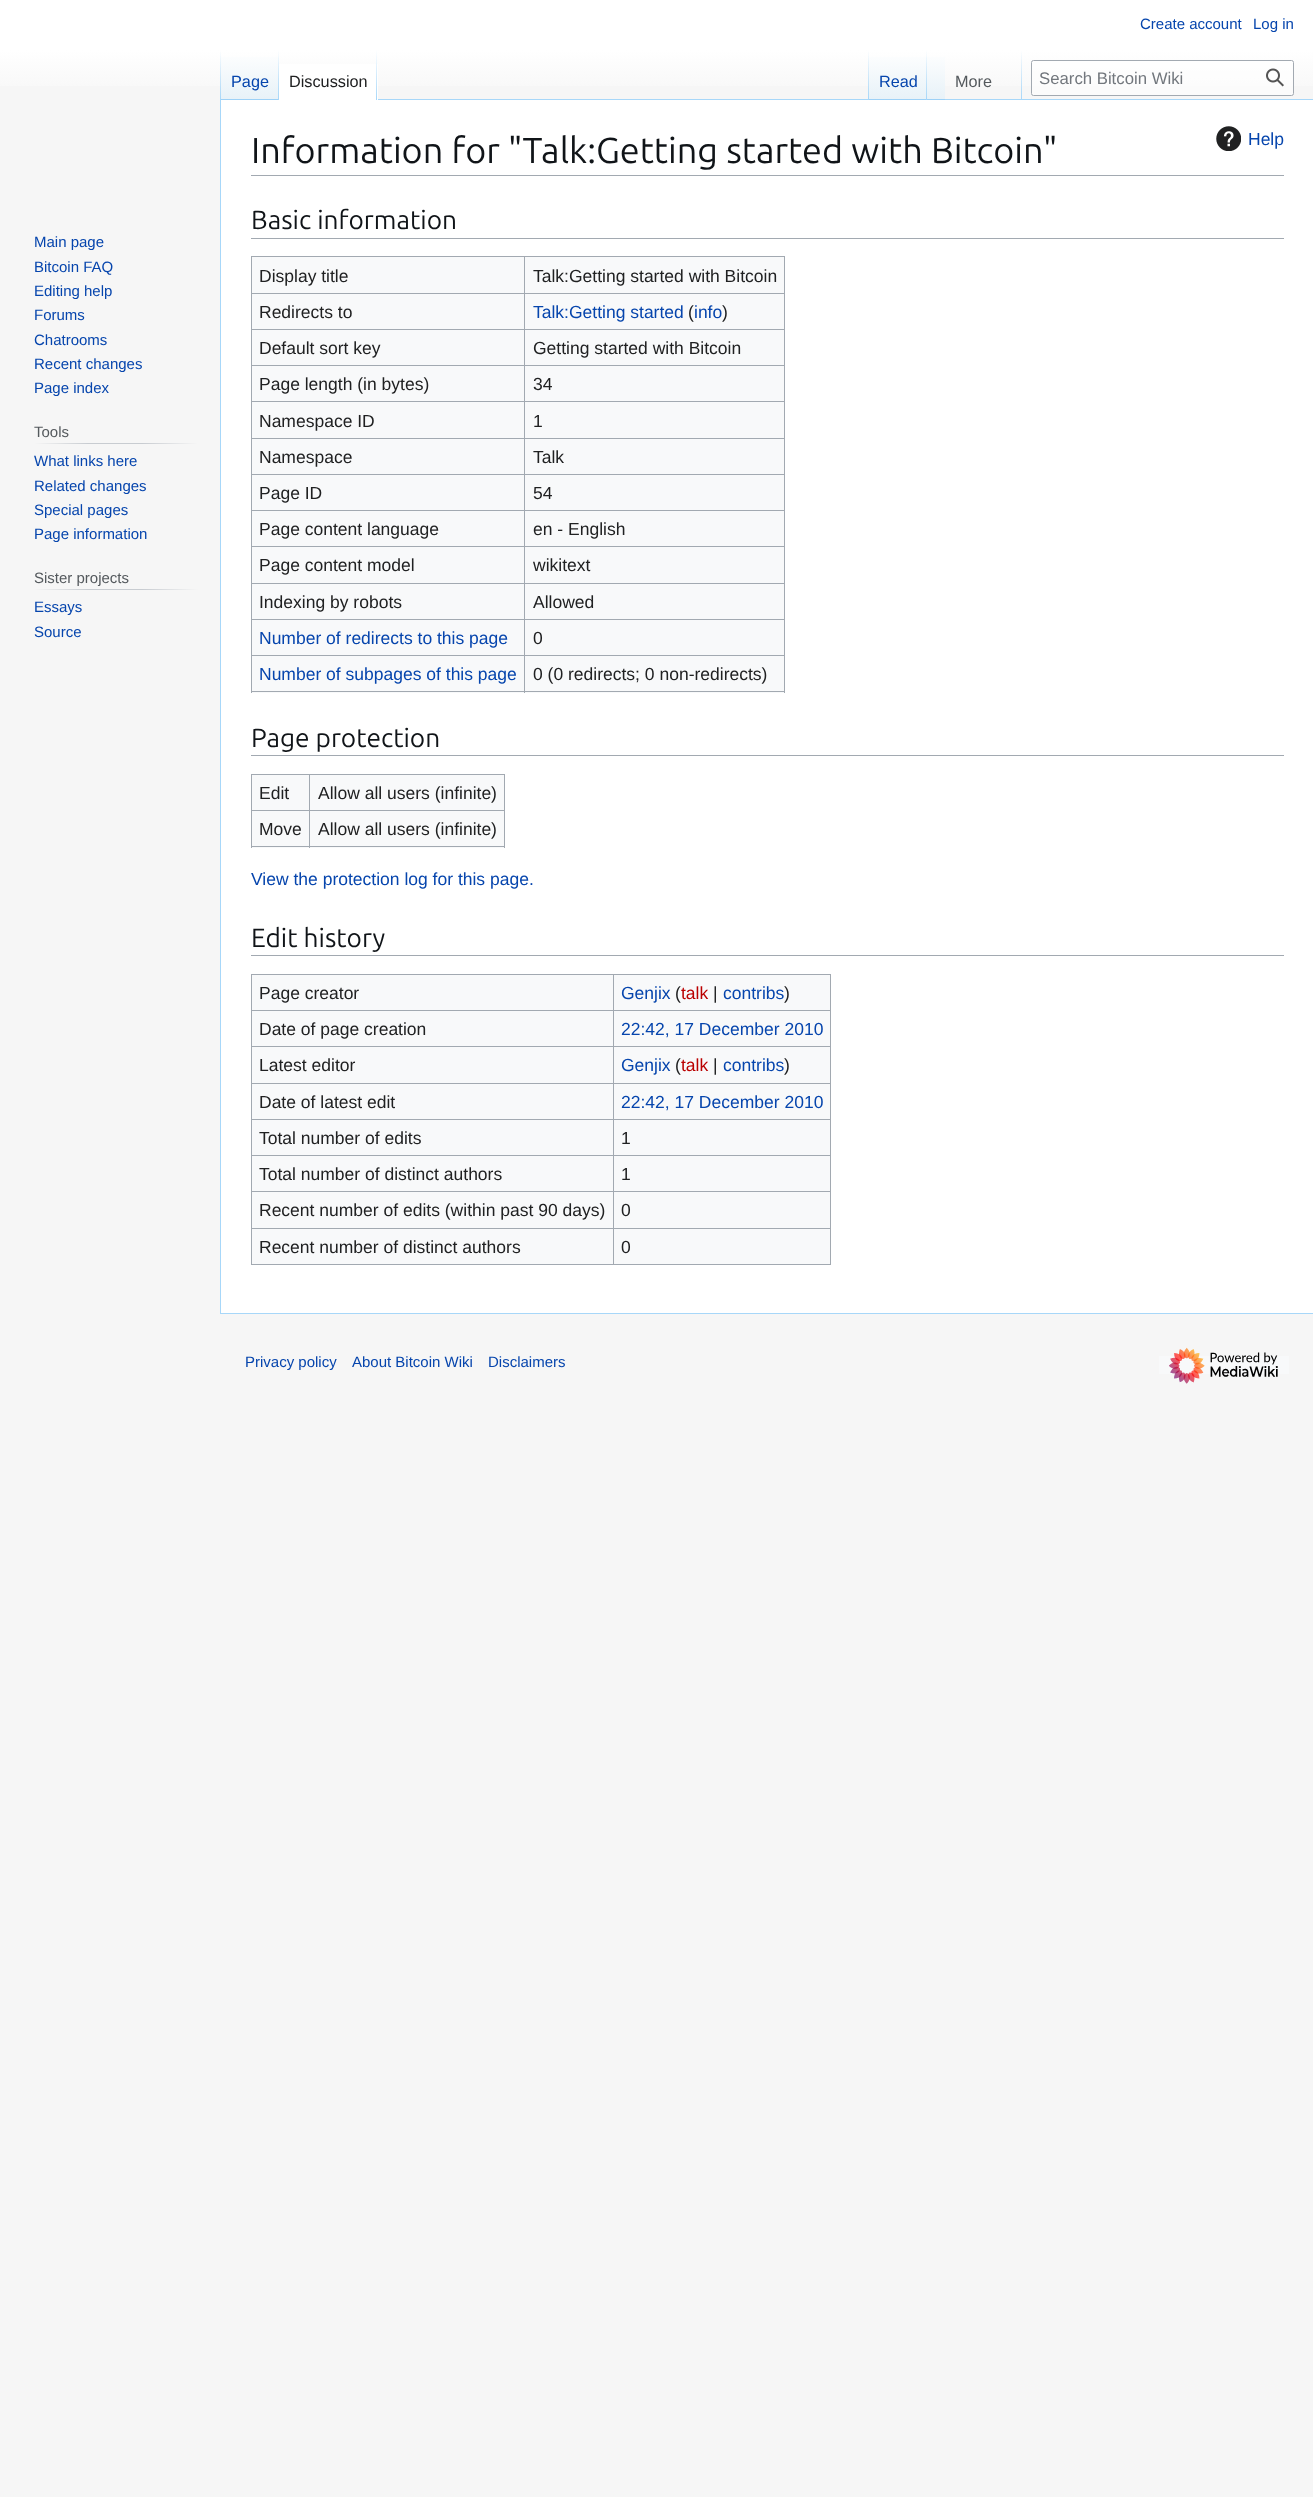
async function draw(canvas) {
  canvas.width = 1313
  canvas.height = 2497
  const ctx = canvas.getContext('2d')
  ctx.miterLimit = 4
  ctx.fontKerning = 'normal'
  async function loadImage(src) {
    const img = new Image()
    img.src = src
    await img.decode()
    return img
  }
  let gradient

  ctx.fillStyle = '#f6f6f6'
  ctx.fillRect(0, 0, 1313, 2497)
  gradient = ctx.createLinearGradient(657, 0, 657, 100)
  gradient.addColorStop(0.5, '#fff')
  gradient.addColorStop(1, '#f6f6f6')
  ctx.fillStyle = gradient
  ctx.fillRect(0, 0, 1313, 86)
  ctx.font = '15px Liberation Sans'
  ctx.fillStyle = '#0645ad'
  ctx.fillText('Create account', 1140, 29)
  ctx.fillText('Log in', 1253, 29)
  ctx.fillStyle = '#a7d7f9'
  ctx.fillRect(220, 1313, 1093, 1)
  ctx.fillRect(220, 99, 1, 1215)
  gradient = ctx.createLinearGradient(221, 50, 221, 100)
  gradient.addColorStop(0, '#a7d7f900')
  gradient.addColorStop(1, '#a7d7f9')
  ctx.fillStyle = gradient
  ctx.fillRect(220, 50, 1, 50)
  gradient = ctx.createLinearGradient(250, 100, 250, 50)
  gradient.addColorStop(0, '#77c1f6')
  gradient.addColorStop(0.03, '#e8f2f8')
  gradient.addColorStop(1, '#fff')
  ctx.fillStyle = gradient
  ctx.fillRect(221, 57, 58, 43)
  gradient = ctx.createLinearGradient(278, 50, 278, 100)
  gradient.addColorStop(0, '#a7d7f900')
  gradient.addColorStop(1, '#a7d7f9')
  ctx.fillStyle = gradient
  ctx.fillRect(278, 50, 1, 50)
  ctx.font = '16.25px Liberation Sans'
  ctx.fillStyle = '#0645ad'
  ctx.fillText('Page', 231, 87)
  ctx.fillStyle = '#fff'
  ctx.fillRect(279, 64, 99, 36)
  gradient = ctx.createLinearGradient(377, 50, 377, 100)
  gradient.addColorStop(0, '#fff')
  gradient.addColorStop(1, '#a7d7f9')
  ctx.fillStyle = gradient
  ctx.fillRect(376, 50, 1, 50)
  ctx.fillStyle = '#202122'
  ctx.fillText('Discussion', 289, 87)
  ctx.fillStyle = '#a7d7f9'
  ctx.fillRect(378, 99, 935, 1)
  gradient = ctx.createLinearGradient(868, 50, 868, 100)
  gradient.addColorStop(0, '#a7d7f900')
  gradient.addColorStop(1, '#a7d7f9')
  ctx.fillStyle = gradient
  ctx.fillRect(868, 50, 1, 50)
  gradient = ctx.createLinearGradient(898, 100, 898, 50)
  gradient.addColorStop(0, '#77c1f6')
  gradient.addColorStop(0.03, '#e8f2f8')
  gradient.addColorStop(1, '#fff')
  ctx.fillStyle = gradient
  ctx.fillRect(869, 57, 59, 43)
  gradient = ctx.createLinearGradient(927, 50, 927, 100)
  gradient.addColorStop(0, '#a7d7f900')
  gradient.addColorStop(1, '#a7d7f9')
  ctx.fillStyle = gradient
  ctx.fillRect(926, 50, 1, 50)
  ctx.fillStyle = '#0645ad'
  ctx.fillText('Read', 879, 87)
  gradient = ctx.createLinearGradient(936, 100, 936, 50)
  gradient.addColorStop(0, '#77c1f6')
  gradient.addColorStop(0.03, '#e8f2f8')
  gradient.addColorStop(1, '#fff')
  ctx.fillStyle = gradient
  ctx.fillRect(928, 57, 17, 43)
  gradient = ctx.createLinearGradient(1022, 50, 1022, 100)
  gradient.addColorStop(0, '#a7d7f900')
  gradient.addColorStop(1, '#a7d7f9')
  ctx.fillStyle = gradient
  ctx.fillRect(1021, 50, 1, 50)
  ctx.fillStyle = '#54595d'
  ctx.fillText('More', 955, 87)
  ctx.fillStyle = '#ffffff80'
  ctx.beginPath()
  ctx.roundRect(1031.5, 60.5, 262, 35, 2)
  ctx.fill()
  ctx.strokeStyle = '#a2a9b1'
  ctx.stroke()
  ctx.font = '16.75px Liberation Sans'
  ctx.fillStyle = '#72777d'
  ctx.fillText('Search Bitcoin Wiki', 1039, 84)
  ctx.drawImage(await loadImage('image0.png'), 1266, 68, 18, 19)
  ctx.font = '15px Liberation Sans'
  ctx.fillStyle = '#0645ad'
  ctx.fillText('Main page', 34, 247)
  ctx.fillText('Bitcoin FAQ', 34, 272)
  ctx.fillText('Editing help', 34, 296)
  ctx.fillText('Forums', 34, 320)
  ctx.fillText('Chatrooms', 34, 345)
  ctx.fillText('Recent changes', 34, 369)
  ctx.fillText('Page index', 34, 393)
  gradient = ctx.createLinearGradient(34, 443, 198, 443)
  gradient.addColorStop(0, '#f6f6f6')
  gradient.addColorStop(0.33, '#c8ccd1')
  gradient.addColorStop(0.66, '#c8ccd1')
  gradient.addColorStop(1, '#f6f6f6')
  ctx.fillStyle = gradient
  ctx.fillRect(34, 443, 164, 1)
  ctx.fillStyle = '#54595d'
  ctx.fillText('Tools', 34, 437)
  ctx.fillStyle = '#0645ad'
  ctx.fillText('What links here', 34, 466)
  ctx.fillText('Related changes', 34, 491)
  ctx.fillText('Special pages', 34, 515)
  ctx.fillText('Page information', 34, 539)
  gradient = ctx.createLinearGradient(34, 589, 198, 589)
  gradient.addColorStop(0, '#f6f6f6')
  gradient.addColorStop(0.33, '#c8ccd1')
  gradient.addColorStop(0.66, '#c8ccd1')
  gradient.addColorStop(1, '#f6f6f6')
  ctx.fillStyle = gradient
  ctx.fillRect(34, 589, 164, 1)
  ctx.fillStyle = '#54595d'
  ctx.fillText('Sister projects', 34, 583)
  ctx.fillStyle = '#0645ad'
  ctx.fillText('Essays', 34, 612)
  ctx.fillText('Source', 34, 637)
  ctx.fillStyle = '#fff'
  ctx.fillRect(221, 100, 1092, 1213)
  ctx.fillStyle = '#a2a9b1'
  ctx.fillRect(251, 175, 1033, 1)
  ctx.font = '36px Ubuntu'
  ctx.fillStyle = '#101418'
  ctx.fillText('Information for "Talk:Getting started with Bitcoin"', 251, 163)
  ctx.drawImage(await loadImage('image1.png'), 1216, 126, 25, 25)
  ctx.font = '17.5px Liberation Sans'
  ctx.fillStyle = '#0645ad'
  ctx.fillText('Help', 1248, 145)
  ctx.fillStyle = '#a2a9b1'
  ctx.fillRect(251, 238, 1033, 1)
  ctx.font = '26.25px Ubuntu'
  ctx.fillStyle = '#101418'
  ctx.fillText('Basic information', 251, 229)
  ctx.fillStyle = '#f8f9fa'
  ctx.fillRect(252, 257, 532, 436)
  ctx.fillStyle = '#a2a9b1'
  ctx.fillRect(251, 256, 534, 1)
  ctx.fillRect(784, 256, 1, 437)
  ctx.fillRect(251, 691, 534, 1)
  ctx.fillRect(251, 256, 1, 437)
  ctx.font = '17.5px Liberation Sans'
  ctx.fillStyle = '#202122'
  ctx.fillText('Display title', 259, 282)
  ctx.fillStyle = '#a2a9b1'
  ctx.fillRect(524, 293, 261, 1)
  ctx.fillRect(524, 329, 261, 1)
  ctx.fillRect(524, 365, 261, 1)
  ctx.fillRect(524, 401, 261, 1)
  ctx.fillRect(524, 438, 261, 1)
  ctx.fillRect(524, 474, 261, 1)
  ctx.fillRect(524, 510, 261, 1)
  ctx.fillRect(524, 546, 261, 1)
  ctx.fillRect(524, 583, 261, 1)
  ctx.fillRect(524, 619, 261, 1)
  ctx.fillRect(524, 655, 261, 1)
  ctx.fillRect(524, 655, 1, 38)
  ctx.fillRect(251, 655, 274, 1)
  ctx.fillRect(524, 619, 1, 37)
  ctx.fillRect(251, 619, 274, 1)
  ctx.fillRect(524, 583, 1, 37)
  ctx.fillRect(251, 583, 274, 1)
  ctx.fillRect(524, 546, 1, 38)
  ctx.fillRect(251, 546, 274, 1)
  ctx.fillRect(524, 510, 1, 38)
  ctx.fillRect(251, 510, 274, 1)
  ctx.fillRect(524, 474, 1, 37)
  ctx.fillRect(251, 474, 274, 1)
  ctx.fillRect(524, 438, 1, 37)
  ctx.fillRect(251, 438, 274, 1)
  ctx.fillRect(524, 401, 1, 38)
  ctx.fillRect(251, 401, 274, 1)
  ctx.fillRect(524, 365, 1, 38)
  ctx.fillRect(251, 365, 274, 1)
  ctx.fillRect(524, 329, 1, 37)
  ctx.fillRect(251, 329, 274, 1)
  ctx.fillRect(524, 293, 1, 37)
  ctx.fillRect(251, 293, 274, 1)
  ctx.fillRect(524, 256, 1, 38)
  ctx.fillStyle = '#202122'
  ctx.fillText('Talk:Getting started with Bitcoin', 533, 282)
  ctx.fillText('Redirects to', 259, 318)
  ctx.fillStyle = '#0645ad'
  ctx.fillText('Talk:Getting started', 533, 318)
  ctx.fillStyle = '#202122'
  ctx.fillText('(', 688, 318)
  ctx.fillStyle = '#0645ad'
  ctx.fillText('info', 694, 318)
  ctx.fillStyle = '#202122'
  ctx.fillText(')', 722, 318)
  ctx.fillText('Default sort key', 259, 354)
  ctx.fillText('Getting started with Bitcoin', 533, 354)
  ctx.fillText('Page length (in bytes)', 259, 390)
  ctx.fillText('34', 533, 390)
  ctx.fillText('Namespace ID', 259, 427)
  ctx.fillText('1', 533, 427)
  ctx.fillText('Namespace', 259, 463)
  ctx.fillText('Talk', 533, 463)
  ctx.fillText('Page ID', 259, 499)
  ctx.fillText('54', 533, 499)
  ctx.fillText('Page content language', 259, 535)
  ctx.fillText('en - English', 533, 535)
  ctx.fillText('Page content model', 259, 571)
  ctx.fillText('wikitext', 533, 571)
  ctx.fillText('Indexing by robots', 259, 608)
  ctx.fillText('Allowed', 533, 608)
  ctx.fillStyle = '#0645ad'
  ctx.fillText('Number of redirects to this page', 259, 644)
  ctx.fillStyle = '#202122'
  ctx.fillText('0', 533, 644)
  ctx.fillStyle = '#0645ad'
  ctx.fillText('Number of subpages of this page', 259, 680)
  ctx.fillStyle = '#202122'
  ctx.fillText('0 (0 redirects; 0 non-redirects)', 533, 680)
  ctx.fillStyle = '#a2a9b1'
  ctx.fillRect(251, 755, 1033, 1)
  ctx.font = '26.25px Ubuntu'
  ctx.fillStyle = '#101418'
  ctx.fillText('Page protection', 251, 747)
  ctx.fillStyle = '#f8f9fa'
  ctx.fillRect(252, 775, 252, 73)
  ctx.fillStyle = '#a2a9b1'
  ctx.fillRect(251, 774, 254, 1)
  ctx.fillRect(504, 774, 1, 74)
  ctx.fillRect(251, 846, 254, 1)
  ctx.fillRect(251, 774, 1, 74)
  ctx.font = '17.5px Liberation Sans'
  ctx.fillStyle = '#202122'
  ctx.fillText('Edit', 259, 799)
  ctx.fillStyle = '#a2a9b1'
  ctx.fillRect(309, 810, 196, 1)
  ctx.fillRect(309, 810, 1, 38)
  ctx.fillRect(251, 810, 59, 1)
  ctx.fillRect(309, 774, 1, 37)
  ctx.fillStyle = '#202122'
  ctx.fillText('Allow all users (infinite)', 318, 799)
  ctx.fillText('Move', 259, 835)
  ctx.fillText('Allow all users (infinite)', 318, 835)
  ctx.fillStyle = '#0645ad'
  ctx.fillText('View the protection log for this page.', 251, 885)
  ctx.fillStyle = '#a2a9b1'
  ctx.fillRect(251, 955, 1033, 1)
  ctx.font = '26.25px Ubuntu'
  ctx.fillStyle = '#101418'
  ctx.fillText('Edit history', 251, 947)
  ctx.fillStyle = '#f8f9fa'
  ctx.fillRect(252, 975, 578, 289)
  ctx.fillStyle = '#a2a9b1'
  ctx.fillRect(251, 974, 580, 1)
  ctx.fillRect(830, 974, 1, 291)
  ctx.fillRect(251, 1264, 580, 1)
  ctx.fillRect(251, 974, 1, 291)
  ctx.font = '17.5px Liberation Sans'
  ctx.fillStyle = '#202122'
  ctx.fillText('Page creator', 259, 999)
  ctx.fillStyle = '#a2a9b1'
  ctx.fillRect(613, 1010, 218, 1)
  ctx.fillRect(613, 1046, 218, 1)
  ctx.fillRect(613, 1083, 218, 1)
  ctx.fillRect(613, 1119, 218, 1)
  ctx.fillRect(613, 1155, 218, 1)
  ctx.fillRect(613, 1191, 218, 1)
  ctx.fillRect(613, 1228, 218, 1)
  ctx.fillRect(613, 1228, 1, 37)
  ctx.fillRect(251, 1228, 363, 1)
  ctx.fillRect(613, 1191, 1, 38)
  ctx.fillRect(251, 1191, 363, 1)
  ctx.fillRect(613, 1155, 1, 38)
  ctx.fillRect(251, 1155, 363, 1)
  ctx.fillRect(613, 1119, 1, 37)
  ctx.fillRect(251, 1119, 363, 1)
  ctx.fillRect(613, 1083, 1, 37)
  ctx.fillRect(251, 1083, 363, 1)
  ctx.fillRect(613, 1046, 1, 38)
  ctx.fillRect(251, 1046, 363, 1)
  ctx.fillRect(613, 1010, 1, 38)
  ctx.fillRect(251, 1010, 363, 1)
  ctx.fillRect(613, 974, 1, 37)
  ctx.fillStyle = '#0645ad'
  ctx.fillText('Genjix', 621, 999)
  ctx.fillStyle = '#202122'
  ctx.fillText('(', 675, 999)
  ctx.fillStyle = '#ba0000'
  ctx.fillText('talk', 681, 999)
  ctx.fillStyle = '#202122'
  ctx.fillText('|', 713, 999)
  ctx.fillStyle = '#0645ad'
  ctx.fillText('contribs', 723, 999)
  ctx.fillStyle = '#202122'
  ctx.fillText(')', 784, 999)
  ctx.fillText('Date of page creation', 259, 1035)
  ctx.fillStyle = '#0645ad'
  ctx.fillText('22:42, 17 December 2010', 621, 1035)
  ctx.fillStyle = '#202122'
  ctx.fillText('Latest editor', 259, 1071)
  ctx.fillStyle = '#0645ad'
  ctx.fillText('Genjix', 621, 1071)
  ctx.fillStyle = '#202122'
  ctx.fillText('(', 675, 1071)
  ctx.fillStyle = '#ba0000'
  ctx.fillText('talk', 681, 1071)
  ctx.fillStyle = '#202122'
  ctx.fillText('|', 713, 1071)
  ctx.fillStyle = '#0645ad'
  ctx.fillText('contribs', 723, 1071)
  ctx.fillStyle = '#202122'
  ctx.fillText(')', 784, 1071)
  ctx.fillText('Date of latest edit', 259, 1108)
  ctx.fillStyle = '#0645ad'
  ctx.fillText('22:42, 17 December 2010', 621, 1108)
  ctx.fillStyle = '#202122'
  ctx.fillText('Total number of edits', 259, 1144)
  ctx.fillText('1', 621, 1144)
  ctx.fillText('Total number of distinct authors', 259, 1180)
  ctx.fillText('1', 621, 1180)
  ctx.fillText('Recent number of edits (within past 90 days)', 259, 1216)
  ctx.fillText('0', 621, 1216)
  ctx.fillText('Recent number of distinct authors', 259, 1253)
  ctx.fillText('0', 621, 1253)
  ctx.font = '15px Liberation Sans'
  ctx.fillStyle = '#0645ad'
  ctx.fillText('Privacy policy', 245, 1367)
  ctx.fillText('About Bitcoin Wiki', 352, 1367)
  ctx.fillText('Disclaimers', 488, 1367)
  ctx.fillStyle = '#f8f9fa'
  ctx.fillRect(1159, 1356, 130, 18)
  ctx.drawImage(await loadImage('image2.png'), 1169, 1347, 109, 37)
}

draw(document.querySelector('canvas'))
